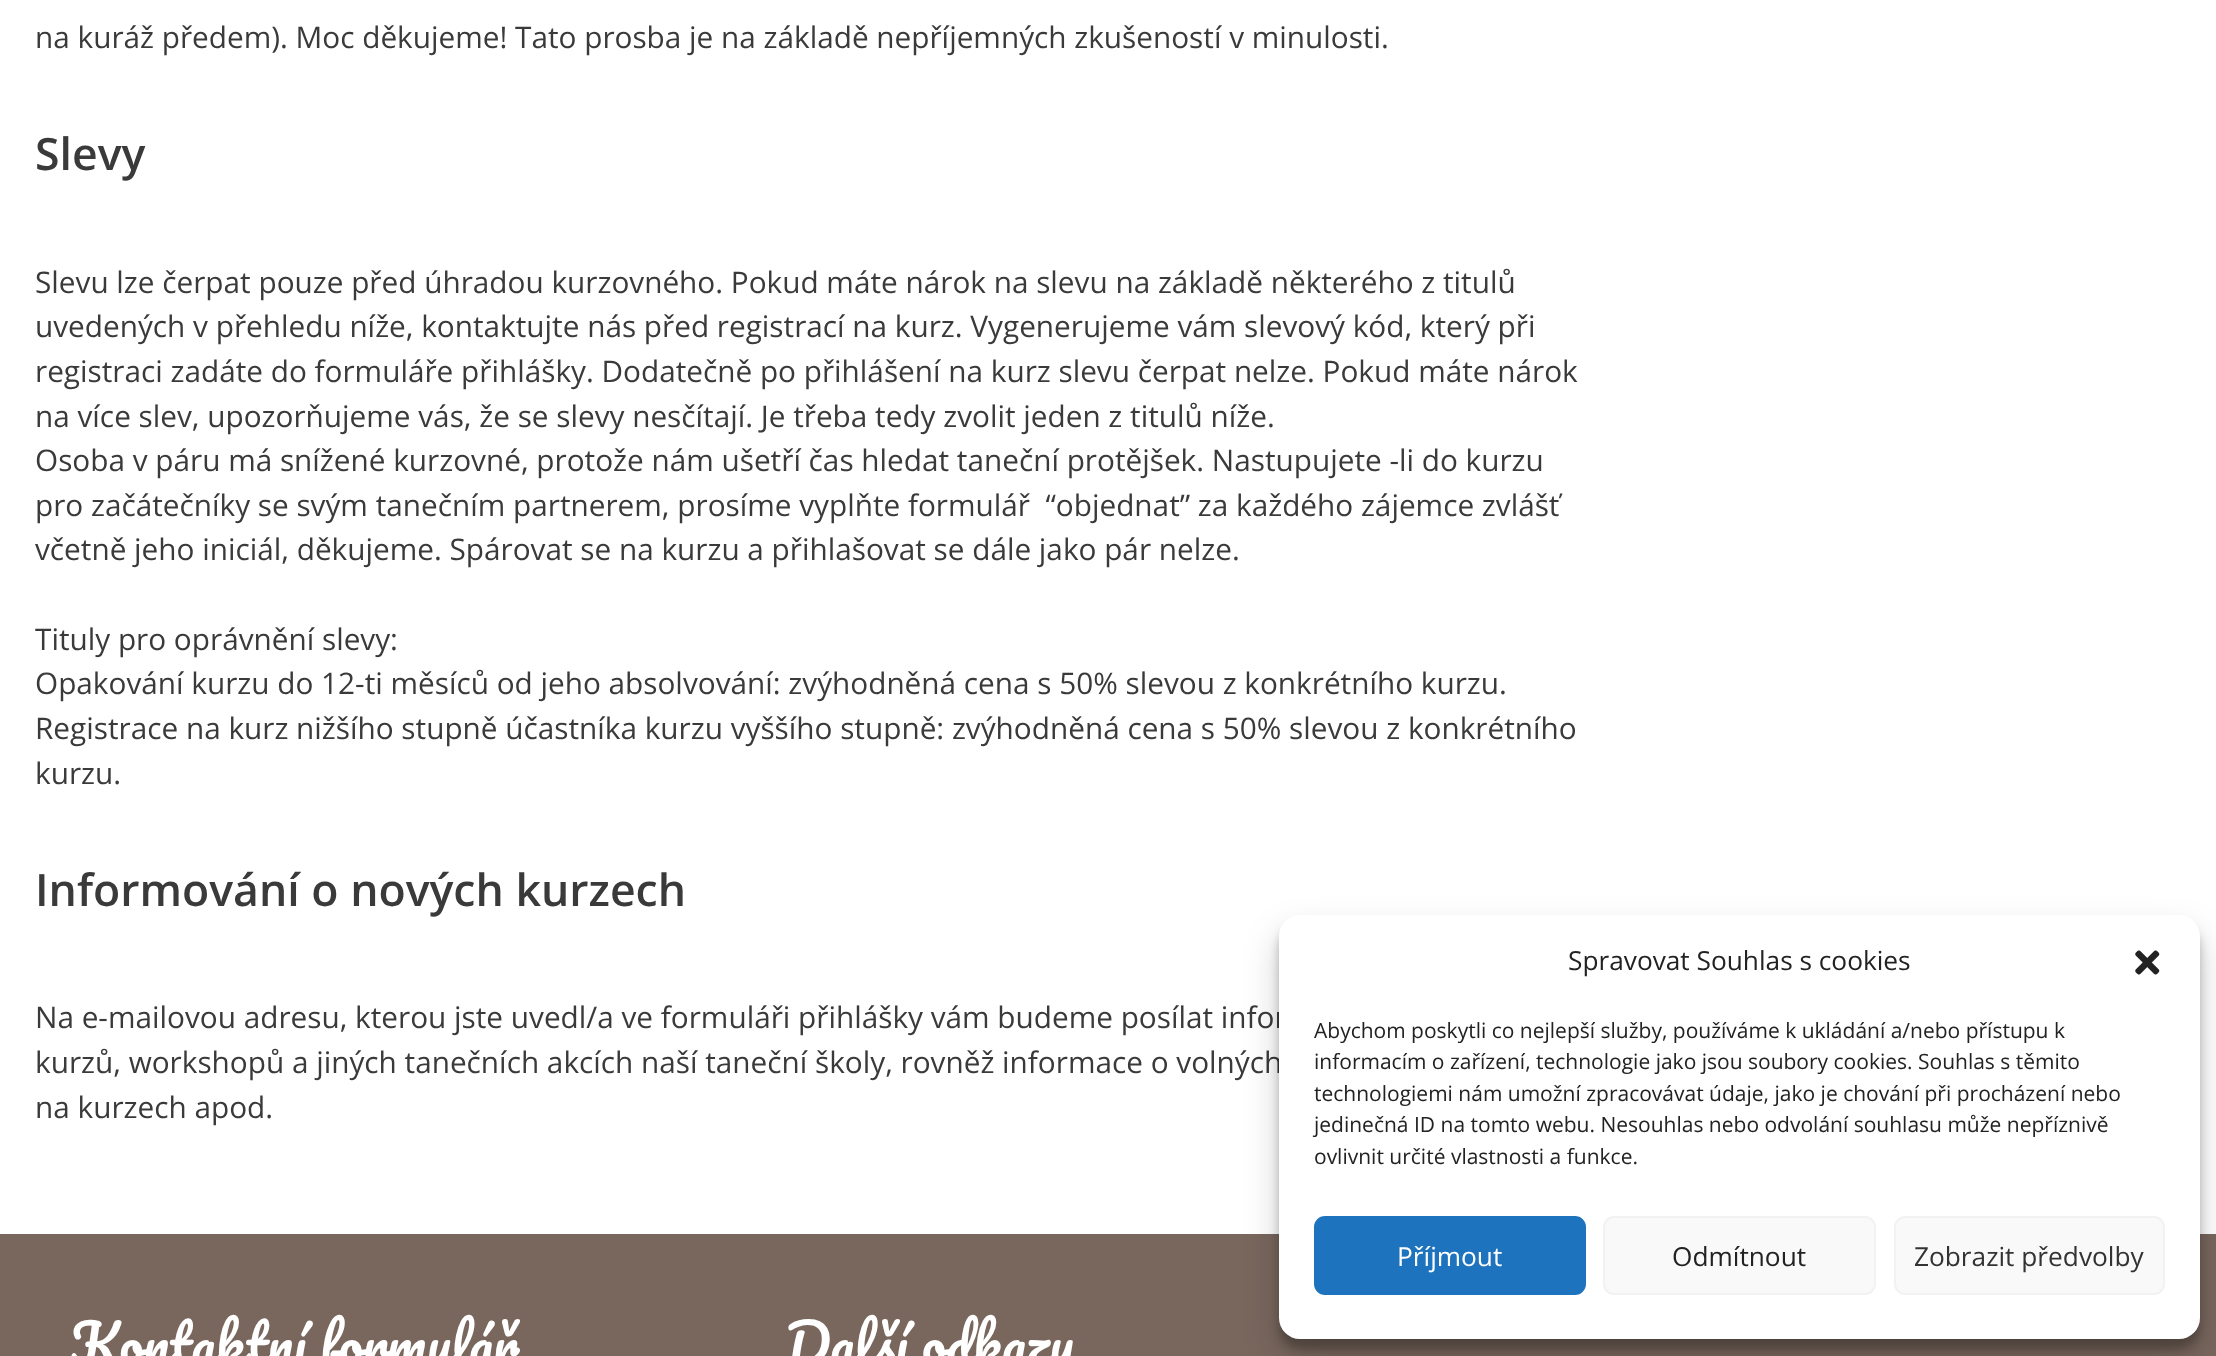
async function draw(canvas) {
  canvas.width = 2216
  canvas.height = 1356
  const ctx = canvas.getContext('2d')
  ctx.miterLimit = 4
  ctx.fontKerning = 'normal'
  async function loadImage(src) {
    const img = new Image()
    img.src = src
    await img.decode()
    return img
  }

  ctx.fillStyle = '#fff'
  ctx.fillRect(0, 0, 2216, 1356)
  ctx.font = '29.75px Open Sans'
  ctx.fillStyle = '#3a3a3a'
  ctx.fillText('na kuráž předem). Moc děkujeme! Tato prosba je na základě nepříjemných zkušeností v minulosti.', 35, 48)
  ctx.font = '600 44.6px Open Sans'
  ctx.fillText('Slevy', 35, 170)
  ctx.font = '29.75px Open Sans'
  ctx.fillText('Slevu lze čerpat pouze před úhradou kurzovného. Pokud máte nárok na slevu na základě některého z titulů', 35, 293)
  ctx.fillText('uvedených v přehledu níže, kontaktujte nás před registrací na kurz. Vygenerujeme vám slevový kód, který při', 35, 337)
  ctx.fillText('registraci zadáte do formuláře přihlášky. Dodatečně po přihlášení na kurz slevu čerpat nelze. Pokud máte nárok', 35, 382)
  ctx.fillText('na více slev, upozorňujeme vás, že se slevy nesčítají. Je třeba tedy zvolit jeden z titulů níže.', 35, 427)
  ctx.fillText('Osoba v páru má snížené kurzovné, protože nám ušetří čas hledat taneční protějšek. Nastupujete -li do kurzu', 35, 471)
  ctx.fillText('pro začátečníky se svým tanečním partnerem, prosíme vyplňte formulář  “objednat” za každého zájemce zvlášť', 35, 516)
  ctx.fillText('včetně jeho iniciál, děkujeme. Spárovat se na kurzu a přihlašovat se dále jako pár nelze.', 35, 560)
  ctx.fillText('Tituly pro oprávnění slevy:', 35, 650)
  ctx.fillText('Opakování kurzu do 12-ti měsíců od jeho absolvování: zvýhodněná cena s 50% slevou z konkrétního kurzu.', 35, 694)
  ctx.fillText('Registrace na kurz nižšího stupně účastníka kurzu vyššího stupně: zvýhodněná cena s 50% slevou z konkrétního', 35, 739)
  ctx.fillText('kurzu.', 35, 784)
  ctx.font = '600 44.6px Open Sans'
  ctx.fillText('Informování o nových kurzech', 35, 906)
  ctx.font = '29.75px Open Sans'
  ctx.fillText('Na e-mailovou adresu, kterou jste uvedl/a ve formuláři přihlášky vám budeme posílat infor', 35, 1028)
  ctx.fillText('kurzů, workshopů a jiných tanečních akcích naší taneční školy, rovněž informace o volných', 35, 1073)
  ctx.fillText('na kurzech apod.', 35, 1118)
  ctx.fillStyle = '#79675e'
  ctx.fillRect(0, 1234, 2216, 122)
  ctx.fillStyle = '#0000003b'
  ctx.filter = 'blur(5px)'
  ctx.beginPath()
  ctx.roundRect(1279, 926, 921, 423, 21)
  ctx.fill()
  ctx.filter = 'none'
  ctx.fillStyle = '#00000030'
  ctx.filter = 'blur(17.5px)'
  ctx.beginPath()
  ctx.roundRect(1279, 933, 921, 423, 21)
  ctx.fill()
  ctx.filter = 'none'
  ctx.fillStyle = '#fff'
  ctx.beginPath()
  ctx.roundRect(1279, 915, 921, 424, 21)
  ctx.fill()
  ctx.font = '26.25px Open Sans'
  ctx.fillStyle = '#222'
  ctx.fillText('Spravovat Souhlas s cookies', 1568, 970)
  ctx.drawImage(await loadImage('image0.png'), 2135, 950, 25, 25)
  ctx.font = '21px Open Sans'
  ctx.fillText('Abychom poskytli co nejlepší služby, používáme k ukládání a/nebo přístupu k', 1314, 1038)
  ctx.fillText('informacím o zařízení, technologie jako jsou soubory cookies. Souhlas s těmito', 1314, 1069)
  ctx.fillText('technologiemi nám umožní zpracovávat údaje, jako je chování při procházení nebo', 1314, 1101)
  ctx.fillText('jedinečná ID na tomto webu. Nesouhlas nebo odvolání souhlasu může nepříznivě', 1314, 1132)
  ctx.fillText('ovlivnit určité vlastnosti a funkce.', 1314, 1164)
  ctx.fillStyle = '#1e73be'
  ctx.beginPath()
  ctx.roundRect(1315, 1217, 270, 77, 10)
  ctx.fill()
  ctx.strokeStyle = '#1e73be'
  ctx.lineWidth = 2
  ctx.stroke()
  ctx.font = '26.25px Open Sans'
  ctx.fillStyle = '#fff'
  ctx.fillText('Příjmout', 1397, 1266)
  ctx.fillStyle = '#f9f9f9'
  ctx.beginPath()
  ctx.roundRect(1604, 1217, 271, 77, 10)
  ctx.fill()
  ctx.strokeStyle = '#f2f2f2'
  ctx.stroke()
  ctx.fillStyle = '#222'
  ctx.fillText('Odmítnout', 1672, 1266)
  ctx.fillStyle = '#f9f9f9'
  ctx.beginPath()
  ctx.roundRect(1895, 1217, 269, 77, 10)
  ctx.fill()
  ctx.stroke()
  ctx.fillStyle = '#333'
  ctx.fillText('Zobrazit předvolby', 1914, 1266)
  ctx.font = '53.5px Pacifico'
  ctx.fillStyle = '#fff'
  ctx.fillText('Kontaktní formulář', 70, 1365)
  ctx.fillText('Další odkazy', 786, 1365)
}

draw(document.querySelector('canvas'))
